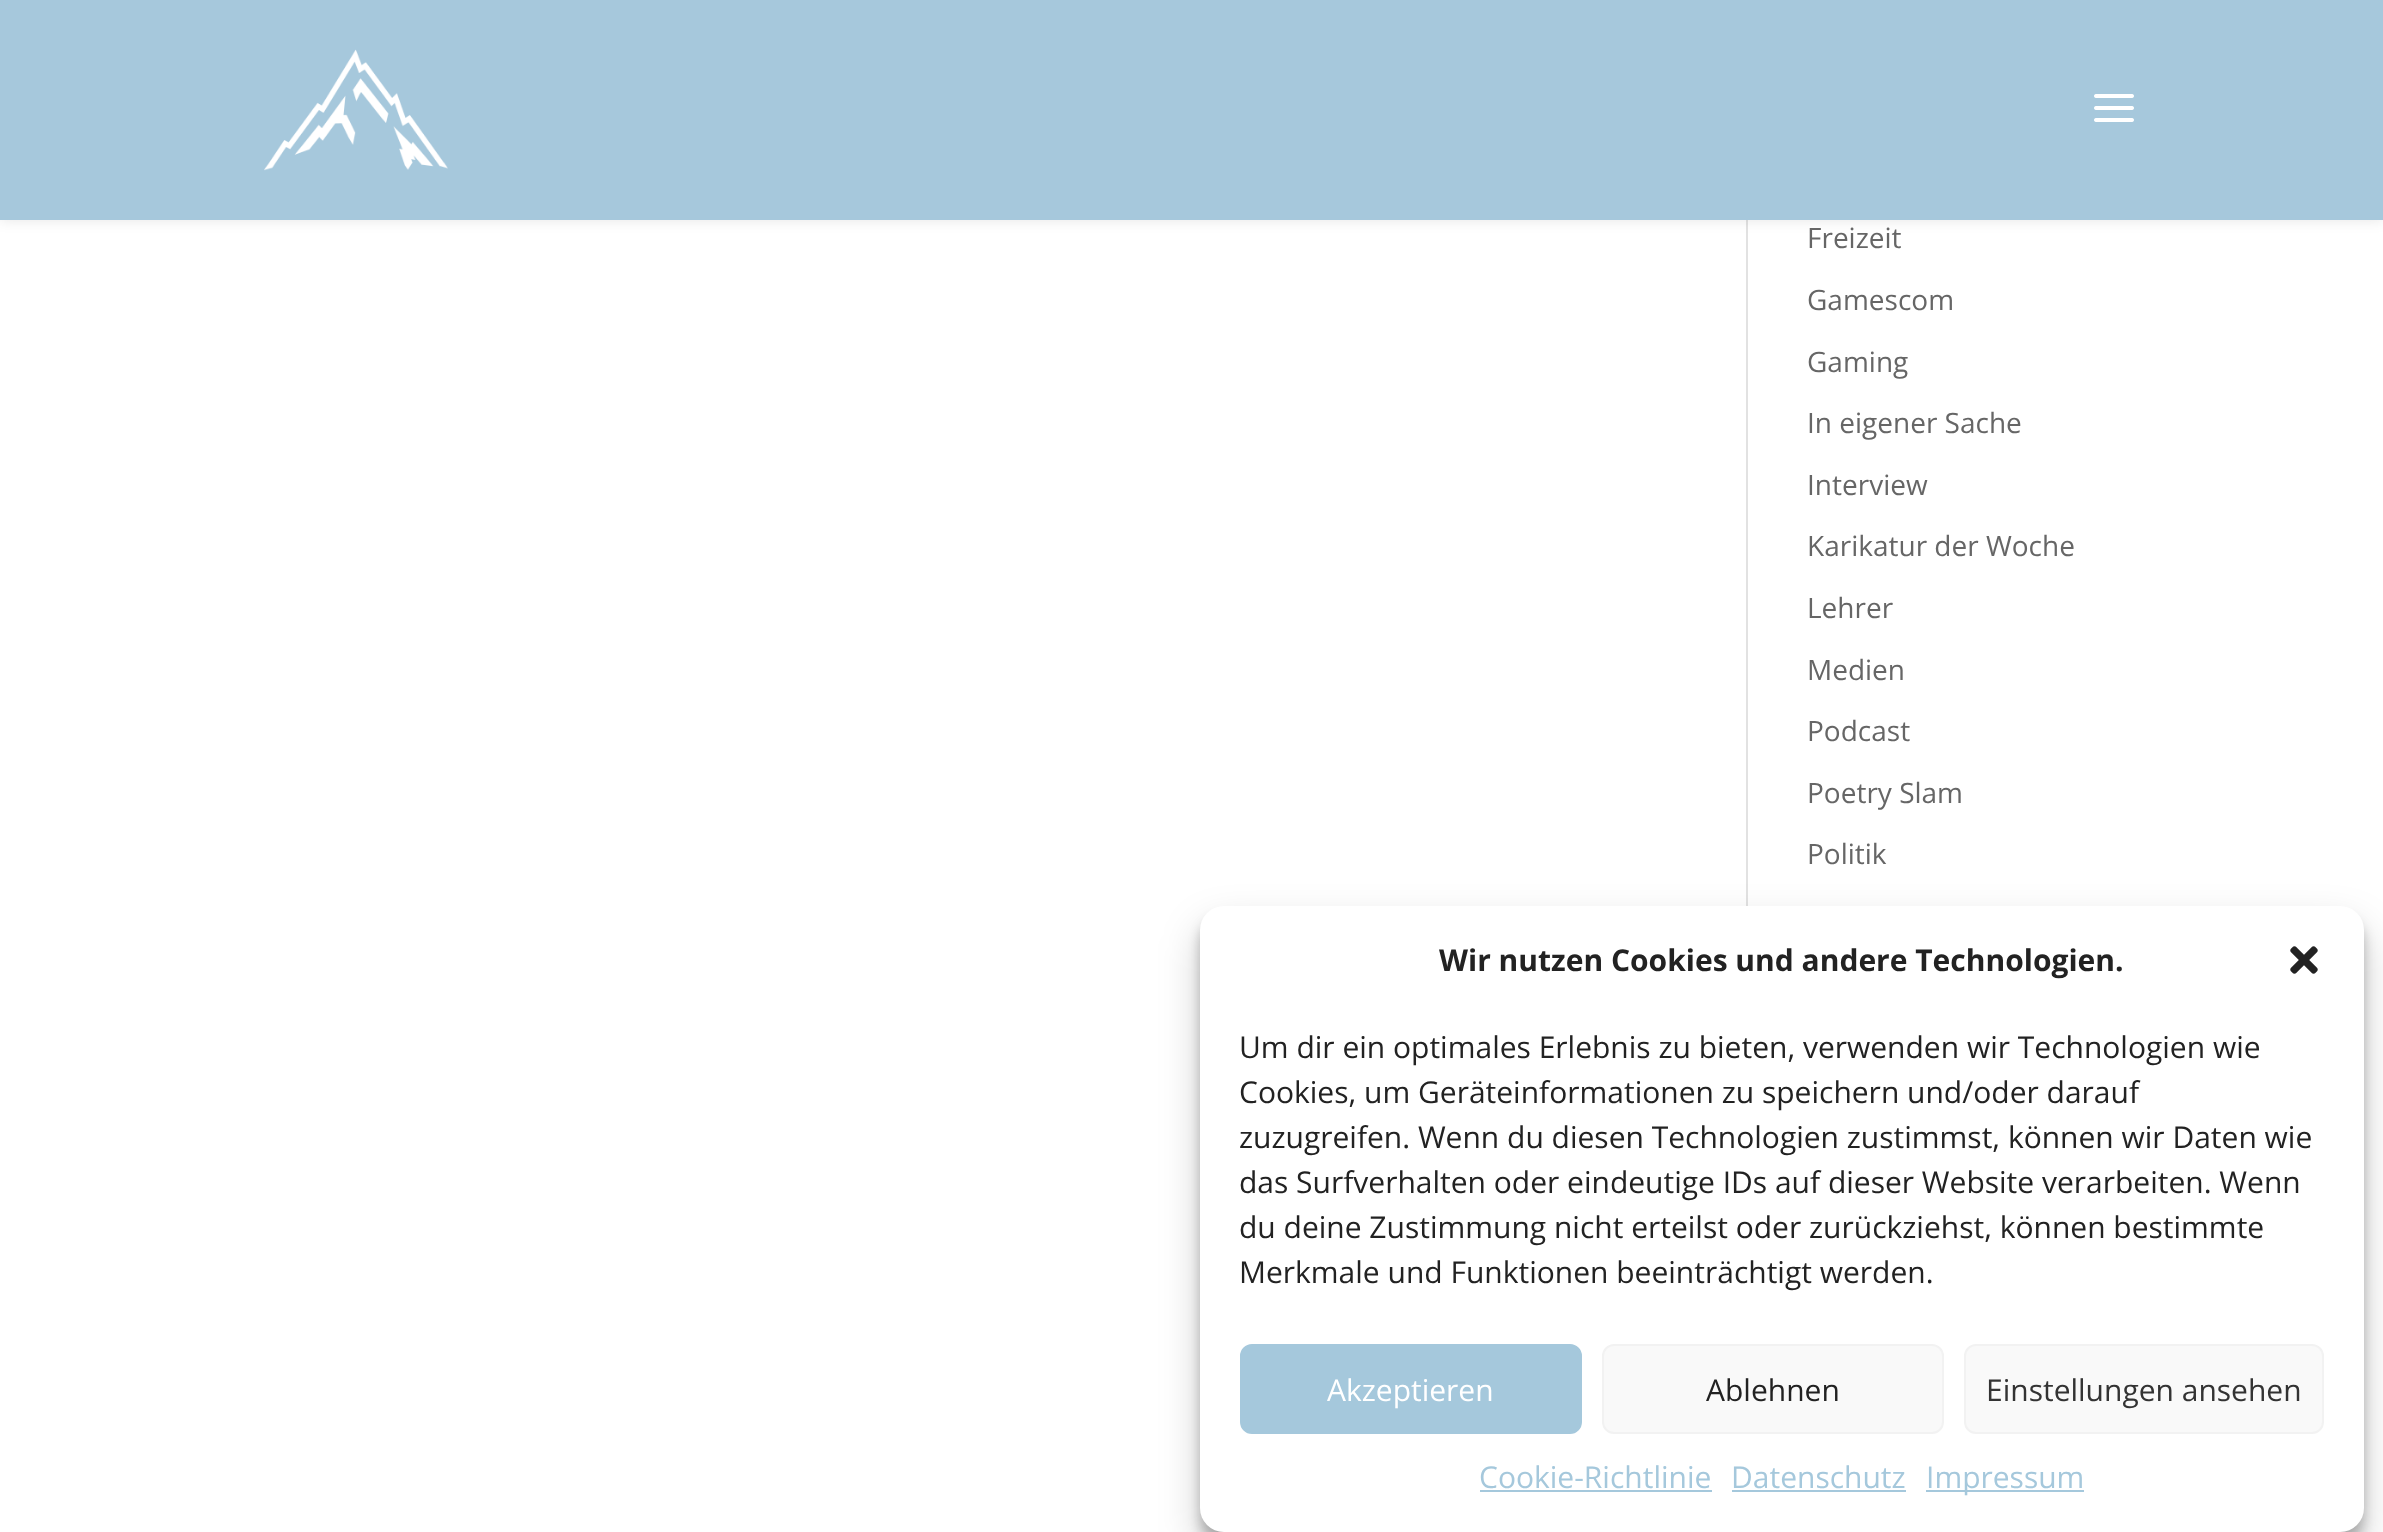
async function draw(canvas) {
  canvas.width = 2383
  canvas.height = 1532
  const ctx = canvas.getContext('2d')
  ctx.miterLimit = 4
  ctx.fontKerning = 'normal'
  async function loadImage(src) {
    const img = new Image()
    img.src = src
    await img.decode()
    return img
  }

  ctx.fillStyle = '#fff'
  ctx.fillRect(0, 0, 2383, 1532)
  ctx.fillStyle = '#e2e2e2'
  ctx.fillRect(1746, 220, 2, 686)
  ctx.fillStyle = '#0000001a'
  ctx.filter = 'blur(7px)'
  ctx.beginPath()
  ctx.rect(0, 0, 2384, 220)
  ctx.fill()
  ctx.filter = 'none'
  ctx.fillStyle = '#a6c8dc'
  ctx.fillRect(0, 0, 2383, 220)
  ctx.drawImage(await loadImage('image0.png'), 264, 49, 184, 122)
  ctx.drawImage(await loadImage('image1.png'), 2094, 94, 40, 28)
  ctx.font = '28px Open Sans'
  ctx.fillStyle = '#666'
  ctx.fillText('Freizeit', 1807, 248)
  ctx.fillText('Gamescom', 1807, 310)
  ctx.fillText('Gaming', 1807, 372)
  ctx.fillText('In eigener Sache', 1807, 433)
  ctx.fillText('Interview', 1807, 495)
  ctx.fillText('Karikatur der Woche', 1807, 556)
  ctx.fillText('Lehrer', 1807, 618)
  ctx.fillText('Medien', 1807, 680)
  ctx.fillText('Podcast', 1807, 741)
  ctx.fillText('Poetry Slam', 1807, 803)
  ctx.fillText('Politik', 1807, 864)
  ctx.fillStyle = '#0000003b'
  ctx.filter = 'blur(6px)'
  ctx.beginPath()
  ctx.roundRect(1200, 918, 1164, 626, 24)
  ctx.fill()
  ctx.filter = 'none'
  ctx.fillStyle = '#00000030'
  ctx.filter = 'blur(20px)'
  ctx.beginPath()
  ctx.roundRect(1200, 926, 1164, 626, 24)
  ctx.fill()
  ctx.filter = 'none'
  ctx.fillStyle = '#fff'
  ctx.beginPath()
  ctx.roundRect(1200, 906, 1164, 626, 24)
  ctx.fill()
  ctx.font = 'bold 30px Open Sans'
  ctx.fillStyle = '#222'
  ctx.fillText('Wir nutzen Cookies und andere Technologien.', 1439, 971)
  ctx.drawImage(await loadImage('image2.png'), 2290, 946, 28, 28)
  ctx.font = '30px Open Sans'
  ctx.fillText('Um dir ein optimales Erlebnis zu bieten, verwenden wir Technologien wie', 1239, 1058)
  ctx.fillText('Cookies, um Geräteinformationen zu speichern und/oder darauf', 1239, 1103)
  ctx.fillText('zuzugreifen. Wenn du diesen Technologien zustimmst, können wir Daten wie', 1239, 1148)
  ctx.fillText('das Surfverhalten oder eindeutige IDs auf dieser Website verarbeiten. Wenn', 1239, 1193)
  ctx.fillText('du deine Zustimmung nicht erteilst oder zurückziehst, können bestimmte', 1239, 1238)
  ctx.fillText('Merkmale und Funktionen beeinträchtigt werden.', 1239, 1283)
  ctx.fillStyle = '#a5c8dc'
  ctx.beginPath()
  ctx.roundRect(1241, 1345, 340, 88, 11)
  ctx.fill()
  ctx.strokeStyle = '#a5c8dc'
  ctx.lineWidth = 2
  ctx.stroke()
  ctx.fillStyle = '#fff'
  ctx.fillText('Akzeptieren', 1327, 1401)
  ctx.fillStyle = '#f9f9f9'
  ctx.beginPath()
  ctx.roundRect(1603, 1345, 340, 88, 11)
  ctx.fill()
  ctx.strokeStyle = '#f2f2f2'
  ctx.stroke()
  ctx.fillStyle = '#222'
  ctx.fillText('Ablehnen', 1706, 1401)
  ctx.fillStyle = '#f9f9f9'
  ctx.beginPath()
  ctx.roundRect(1965, 1345, 358, 88, 11)
  ctx.fill()
  ctx.stroke()
  ctx.fillStyle = '#333'
  ctx.fillText('Einstellungen ansehen', 1986, 1401)
  ctx.fillStyle = '#a5c8dc'
  ctx.fillText('Cookie-Richtlinie', 1479, 1488)
  ctx.fillRect(1480, 1490, 232, 2)
  ctx.fillText('Datenschutz', 1731, 1488)
  ctx.fillRect(1732, 1490, 174, 2)
  ctx.fillRect(1926, 1490, 158, 2)
  ctx.fillText('Impressum', 1926, 1488)
}

draw(document.querySelector('canvas'))
